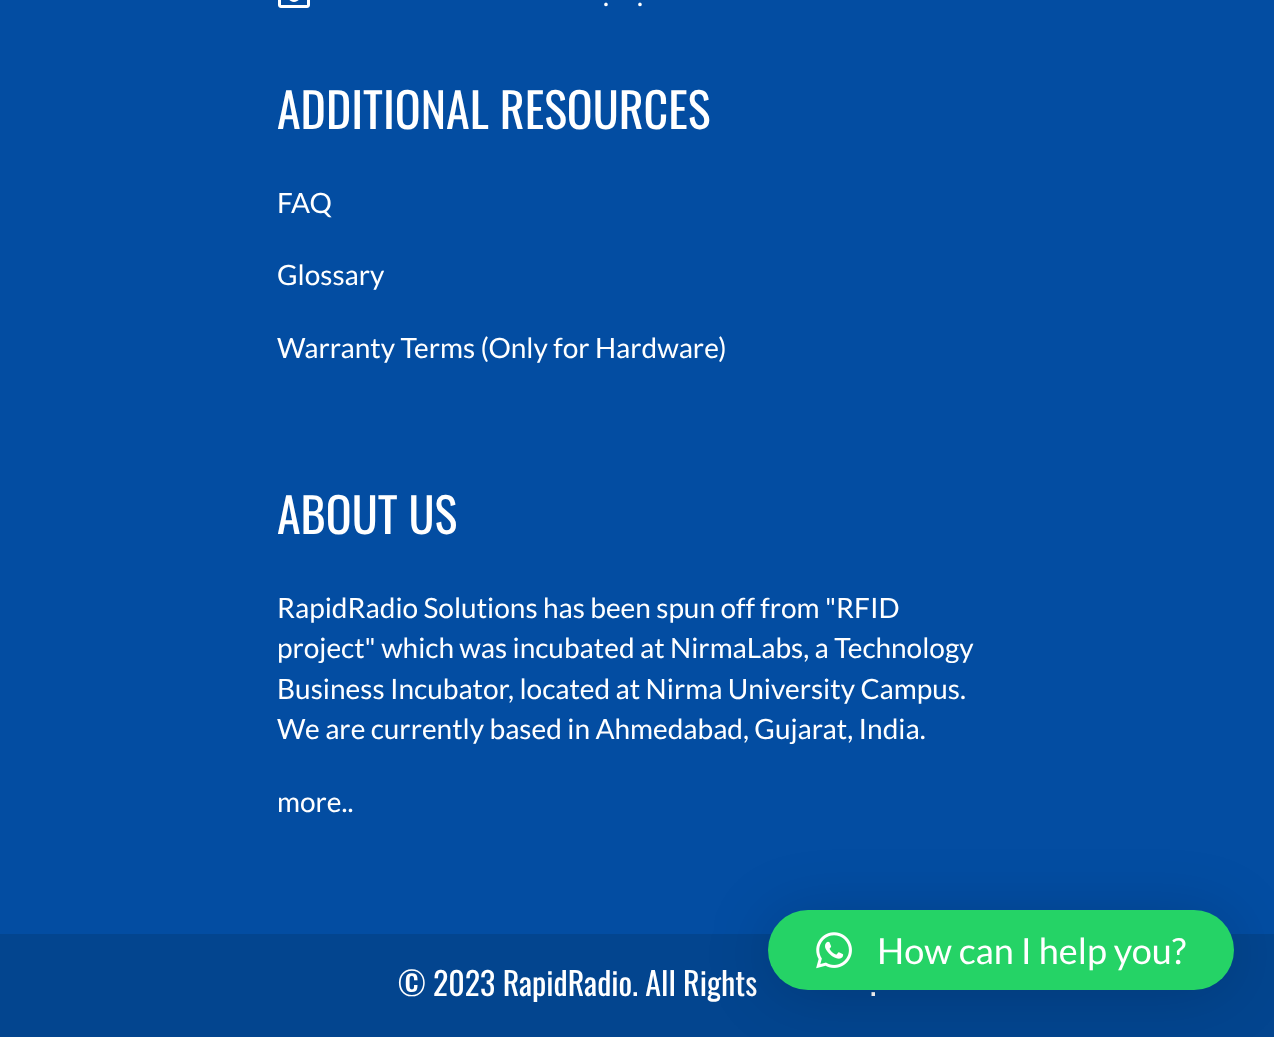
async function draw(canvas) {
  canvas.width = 1274
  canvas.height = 1037
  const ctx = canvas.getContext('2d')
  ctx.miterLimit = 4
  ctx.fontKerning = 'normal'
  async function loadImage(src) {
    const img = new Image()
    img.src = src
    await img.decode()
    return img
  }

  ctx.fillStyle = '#034da2'
  ctx.fillRect(0, 0, 1274, 1037)
  ctx.drawImage(await loadImage('image0.png'), 278, 0, 32, 8)
  ctx.font = '28px Lato'
  ctx.fillStyle = '#fff'
  ctx.fillText('.', 603, 6)
  ctx.fillText('.', 637, 6)
  ctx.font = '48px Oswald'
  ctx.fillText('ADDITIONAL RESOURCES', 277, 129)
  ctx.font = '28px Lato'
  ctx.fillText('FAQ', 277, 213)
  ctx.fillText('Glossary', 277, 285)
  ctx.fillText('Warranty Terms (Only for Hardware)', 277, 358)
  ctx.font = '48px Oswald'
  ctx.fillText('ABOUT US', 277, 534)
  ctx.font = '28px Lato'
  ctx.fillText('RapidRadio Solutions has been spun off from "RFID', 277, 618)
  ctx.fillText('project" which was incubated at NirmaLabs, a Technology', 277, 658)
  ctx.fillText('Business Incubator, located at Nirma University Campus.', 277, 699)
  ctx.fillText('We are currently based in Ahmedabad, Gujarat, India.', 277, 739)
  ctx.fillText('more..', 277, 812)
  ctx.fillStyle = '#03458f'
  ctx.fillRect(0, 934, 1274, 103)
  ctx.font = '32px Oswald'
  ctx.fillStyle = '#fff'
  ctx.fillText('© 2023 RapidRadio. All Rights', 398, 996)
  ctx.fillText('.', 870, 996)
  ctx.fillStyle = '#00000029'
  ctx.filter = 'blur(32px)'
  ctx.beginPath()
  ctx.roundRect(768, 914, 466, 80, 40)
  ctx.fill()
  ctx.filter = 'none'
  ctx.fillStyle = '#25d366'
  ctx.beginPath()
  ctx.roundRect(768, 910, 466, 80, 40)
  ctx.fill()
  ctx.drawImage(await loadImage('image1.png'), 816, 932, 36, 37)
  ctx.font = '36px Lato'
  ctx.fillStyle = '#fff'
  ctx.fillText('How can I help you?', 877, 964)
}

draw(document.querySelector('canvas'))
